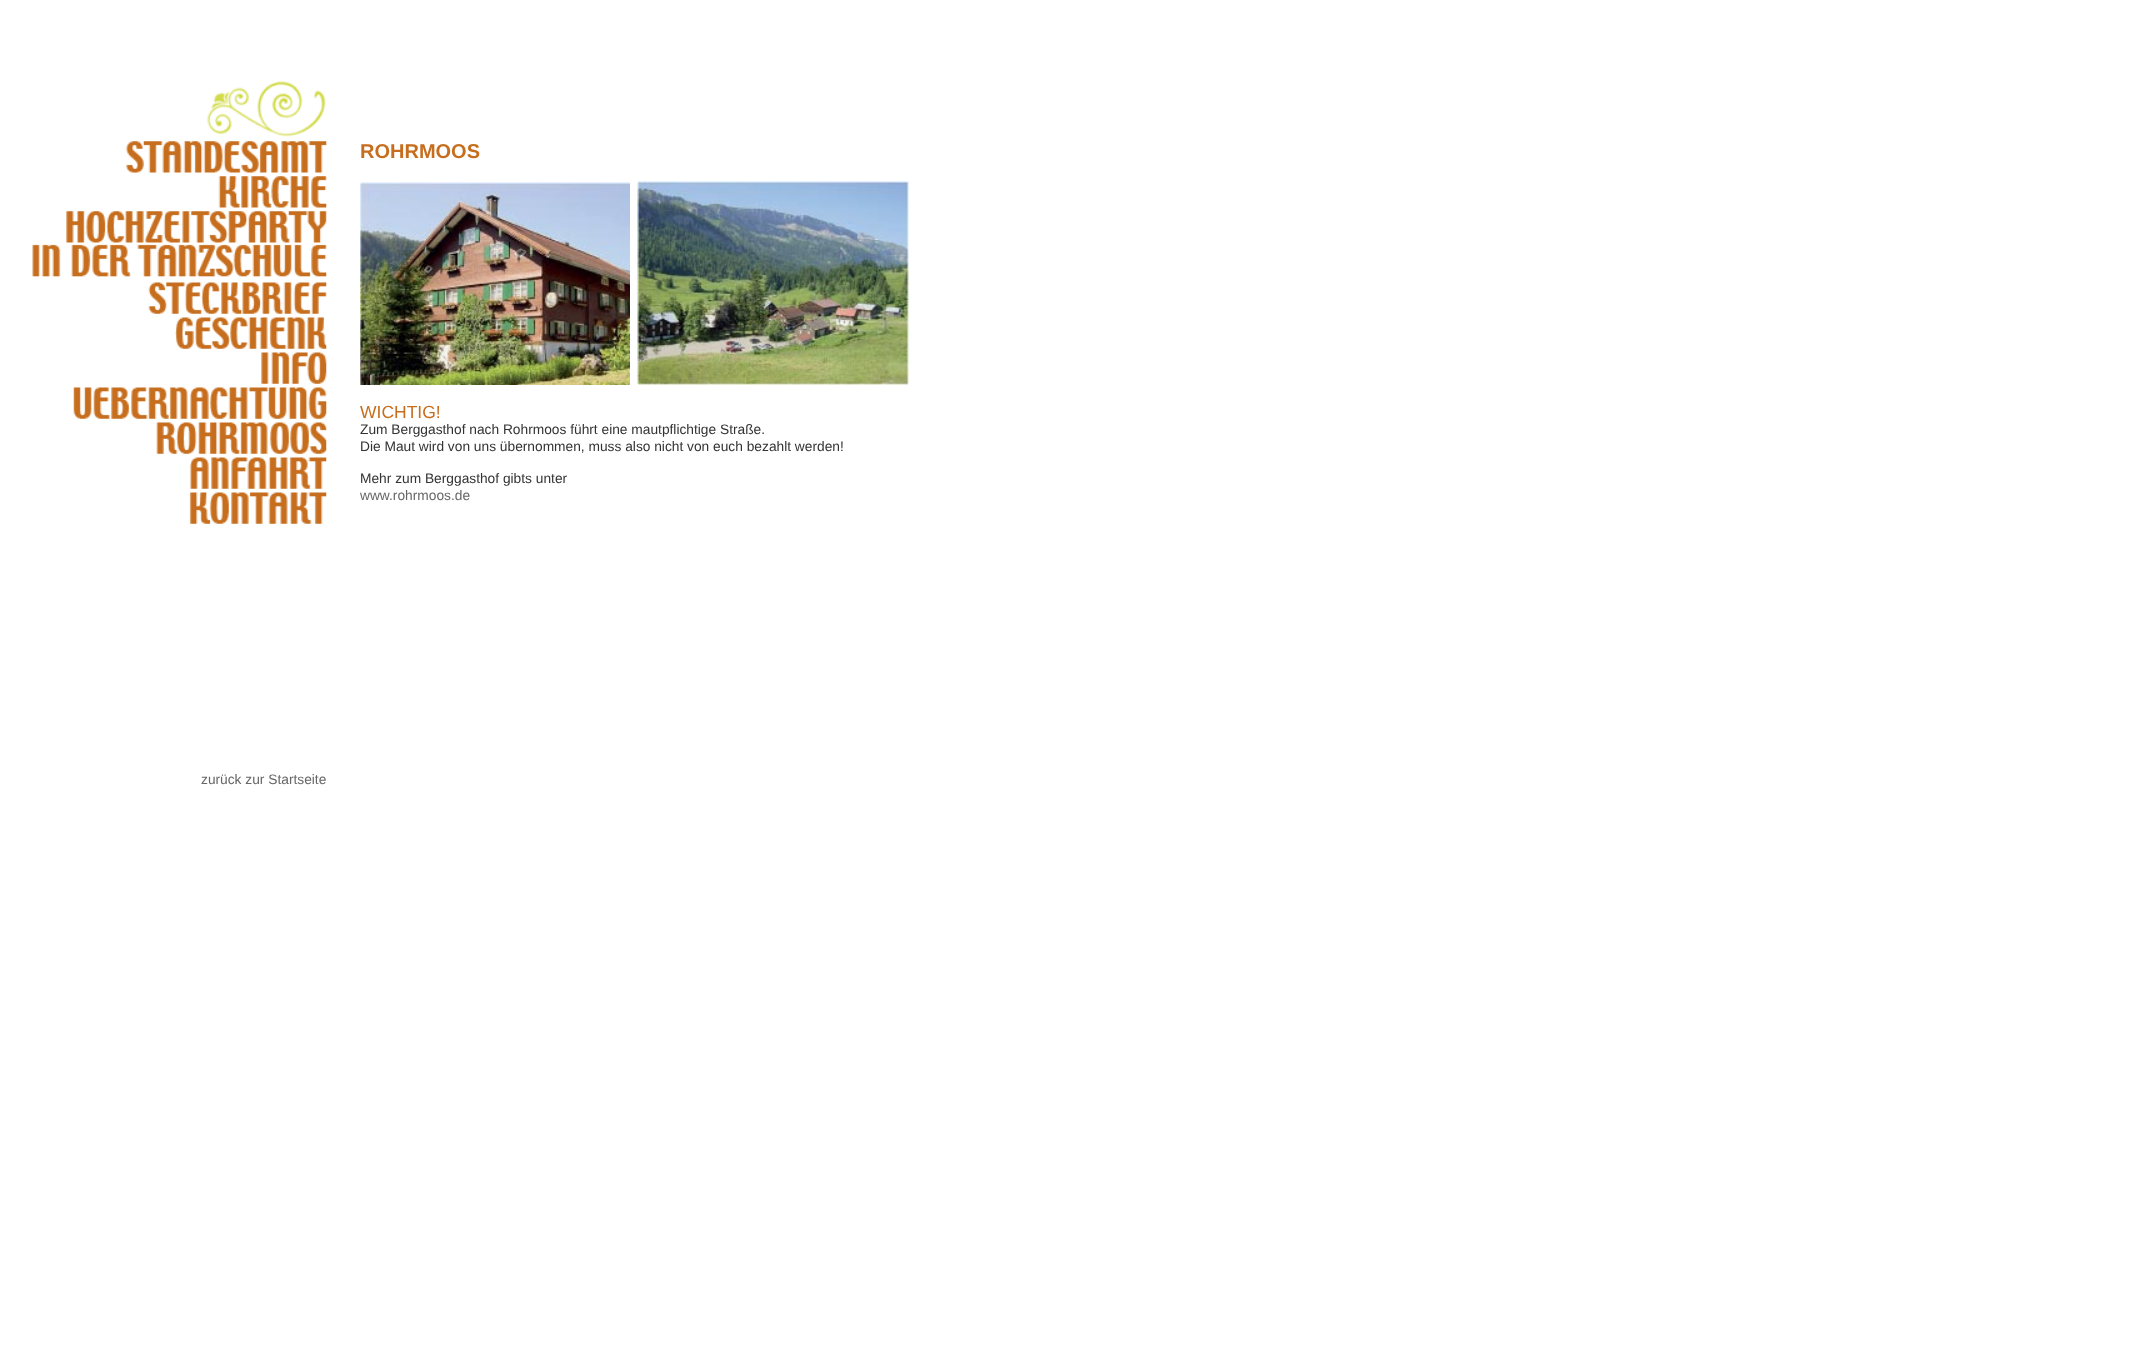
async function draw(canvas) {
  canvas.width = 2143
  canvas.height = 1358
  const ctx = canvas.getContext('2d')
  ctx.miterLimit = 4
  ctx.fontKerning = 'normal'
  async function loadImage(src) {
    const img = new Image()
    img.src = src
    await img.decode()
    return img
  }

  ctx.fillStyle = '#fff'
  ctx.fillRect(0, 0, 2143, 1358)
  ctx.drawImage(await loadImage('image0.png'), 207, 81, 119, 56)
  ctx.drawImage(await loadImage('image1.png'), 126, 141, 201, 32)
  ctx.drawImage(await loadImage('image2.png'), 218, 176, 109, 32)
  ctx.drawImage(await loadImage('image3.png'), 32, 211, 295, 66)
  ctx.drawImage(await loadImage('image4.png'), 148, 282, 179, 32)
  ctx.drawImage(await loadImage('image5.png'), 175, 317, 152, 32)
  ctx.drawImage(await loadImage('image6.png'), 261, 352, 66, 32)
  ctx.drawImage(await loadImage('image7.png'), 73, 387, 254, 32)
  ctx.drawImage(await loadImage('image8.png'), 156, 422, 171, 32)
  ctx.drawImage(await loadImage('image9.png'), 189, 457, 138, 32)
  ctx.drawImage(await loadImage('image10.png'), 189, 492, 138, 32)
  ctx.font = 'bold 20px Liberation Sans'
  ctx.fillStyle = '#c66e1e'
  ctx.fillText('ROHRMOOS', 360, 158)
  ctx.drawImage(await loadImage('image11.png'), 360, 182, 270, 203)
  ctx.drawImage(await loadImage('image12.png'), 637, 181, 272, 204)
  ctx.font = '17.5px Liberation Sans'
  ctx.fillText('WICHTIG!', 360, 418)
  ctx.font = '13.75px Liberation Sans'
  ctx.fillStyle = '#333'
  ctx.fillText('Zum Berggasthof nach Rohrmoos führt eine mautpflichtige Straße.', 360, 434)
  ctx.fillText('Die Maut wird von uns übernommen, muss also nicht von euch bezahlt werden!', 360, 451)
  ctx.fillText('Mehr zum Berggasthof gibts unter', 360, 483)
  ctx.fillStyle = '#666'
  ctx.fillText('www.rohrmoos.de', 360, 500)
  ctx.fillText('zurück zur Startseite', 201, 784)
}

draw(document.querySelector('canvas'))
